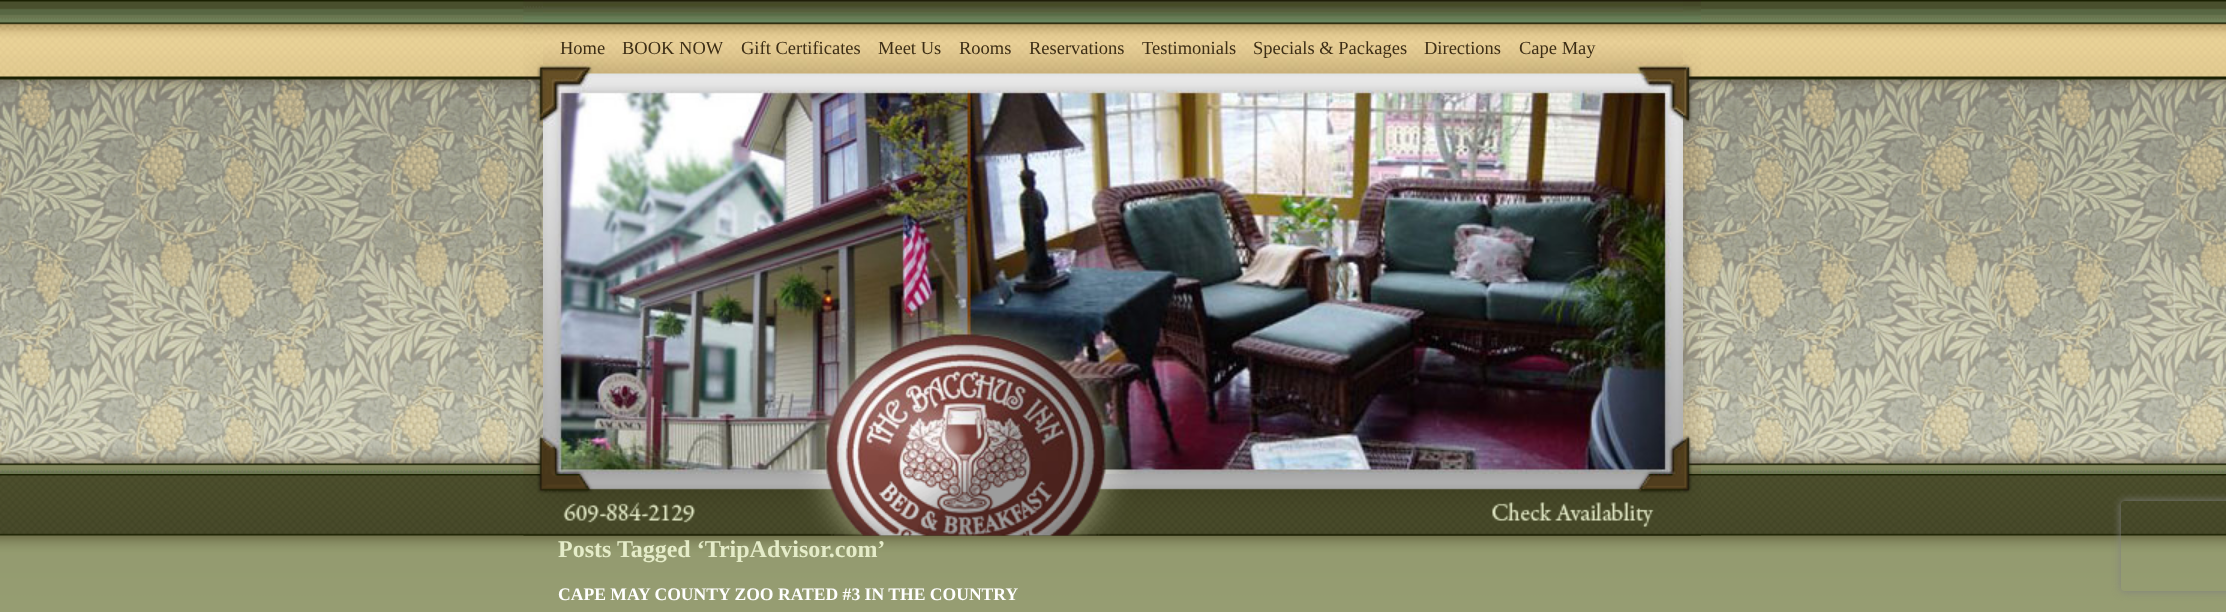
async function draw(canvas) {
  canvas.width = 2226
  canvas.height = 612
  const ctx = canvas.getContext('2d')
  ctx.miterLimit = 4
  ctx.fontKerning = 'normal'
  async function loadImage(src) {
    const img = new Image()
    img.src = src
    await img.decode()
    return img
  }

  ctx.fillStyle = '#fff'
  ctx.fillRect(0, 0, 2226, 612)
  ctx.drawImage(await loadImage('image0.png'), 0, 0, 2226, 474)
  ctx.drawImage(await loadImage('image1.png'), 523, 0, 20, 474)
  ctx.drawImage(await loadImage('image2.png'), 543, 0, 1140, 78)
  ctx.font = '18.5px Liberation Serif'
  ctx.fillStyle = '#3d2e16'
  ctx.fillText('Home', 560, 54)
  ctx.fillText('BOOK NOW', 622, 54)
  ctx.fillText('Gift Certificates', 741, 54)
  ctx.fillText('Meet Us', 878, 54)
  ctx.fillText('Rooms', 959, 54)
  ctx.fillText('Reservations', 1029, 54)
  ctx.fillText('Testimonials', 1142, 54)
  ctx.fillText('Specials & Packages', 1253, 54)
  ctx.fillText('Directions', 1424, 54)
  ctx.fillText('Cape May', 1519, 54)
  ctx.drawImage(await loadImage('image3.png'), 543, 78, 1140, 396)
  ctx.drawImage(await loadImage('image4.png'), 1683, 0, 18, 474)
  ctx.drawImage(await loadImage('image5.png'), 0, 474, 2226, 138)
  ctx.drawImage(await loadImage('image6.png'), 523, 474, 20, 62)
  ctx.drawImage(await loadImage('image7.png'), 1683, 474, 18, 62)
  ctx.drawImage(await loadImage('image8.png'), 543, 474, 1140, 62)
  ctx.font = 'bold 24px Liberation Serif'
  ctx.fillStyle = '#e5ecc9'
  ctx.fillText('Posts Tagged ‘TripAdvisor.com’', 558, 557)
  ctx.font = 'bold 17.6px Liberation Serif'
  ctx.fillStyle = '#fff'
  ctx.fillText('CAPE MAY COUNTY ZOO RATED #3 IN THE COUNTRY', 558, 600)
  ctx.save()
  ctx.beginPath()
  ctx.moveTo(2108, 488)
  ctx.lineTo(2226, 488)
  ctx.lineTo(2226, 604)
  ctx.lineTo(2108, 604)
  ctx.closePath()
  ctx.moveTo(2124, 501)
  ctx.lineTo(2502, 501)
  ctx.bezierCurveTo(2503.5, 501, 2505, 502.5, 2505, 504)
  ctx.lineTo(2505, 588)
  ctx.bezierCurveTo(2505, 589.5, 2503.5, 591, 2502, 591)
  ctx.lineTo(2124, 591)
  ctx.bezierCurveTo(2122.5, 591, 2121, 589.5, 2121, 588)
  ctx.lineTo(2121, 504)
  ctx.bezierCurveTo(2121, 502.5, 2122.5, 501, 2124, 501)
  ctx.closePath()
  ctx.clip('evenodd')
  ctx.fillStyle = '#808080'
  ctx.filter = 'blur(4px)'
  ctx.beginPath()
  ctx.roundRect(2121, 501, 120, 90, 3)
  ctx.fill()
  ctx.filter = 'none'
  ctx.restore()
}

draw(document.querySelector('canvas'))
